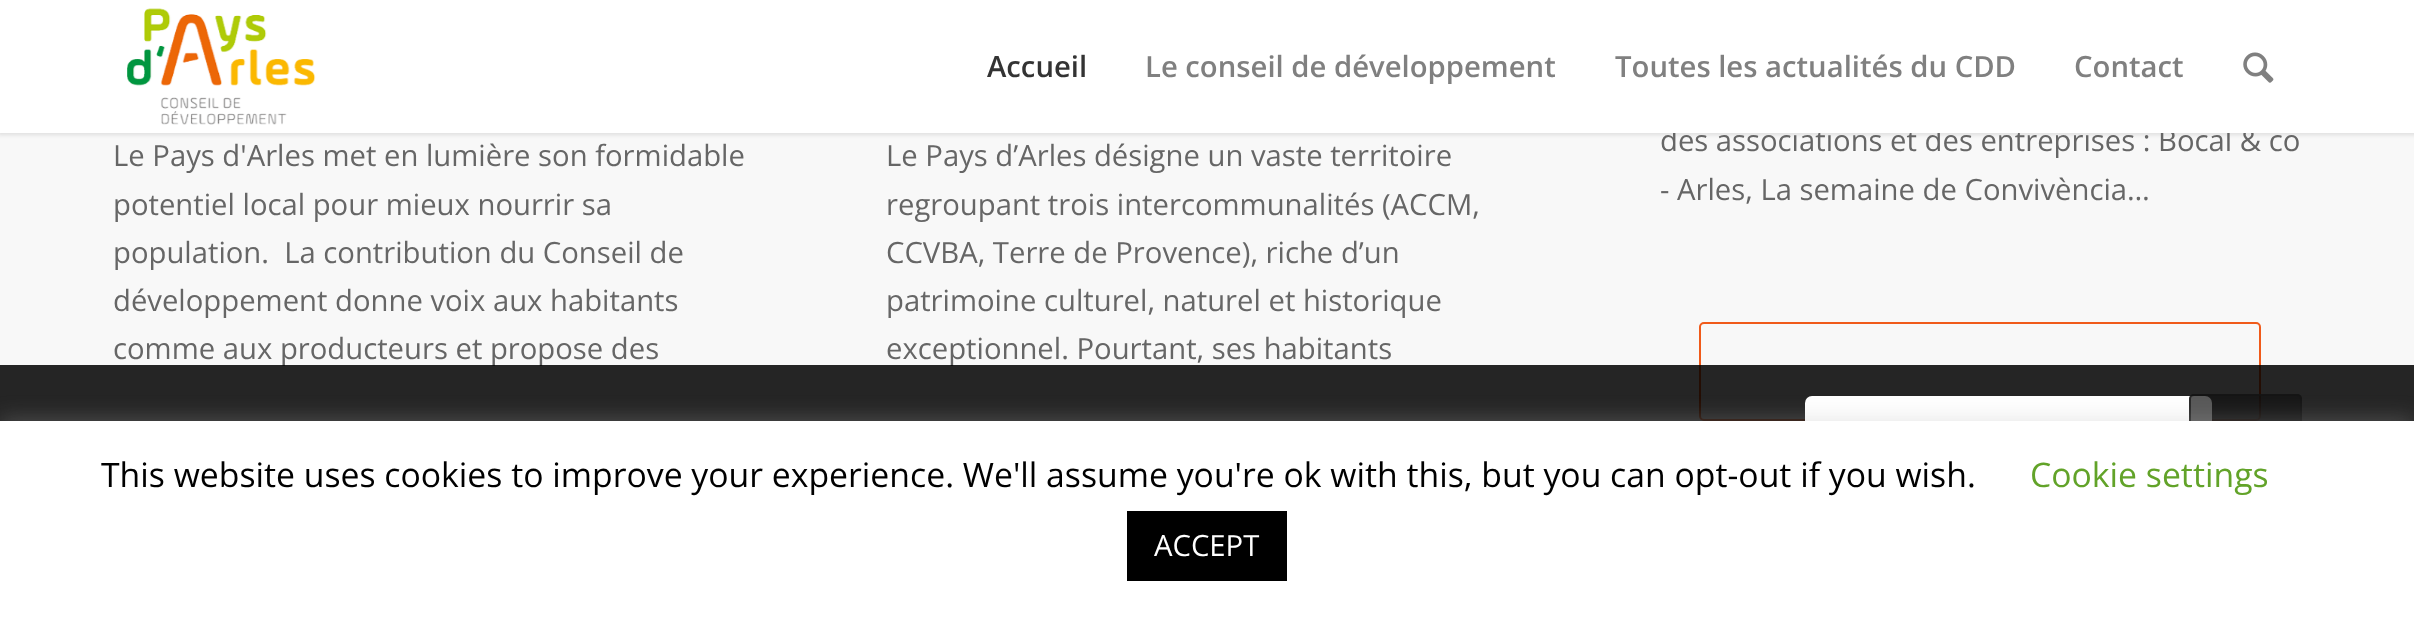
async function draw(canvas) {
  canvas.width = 2414
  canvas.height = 617
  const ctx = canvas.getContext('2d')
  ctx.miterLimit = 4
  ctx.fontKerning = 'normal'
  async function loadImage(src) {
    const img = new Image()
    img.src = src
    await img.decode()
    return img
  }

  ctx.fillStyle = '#f8f8f8'
  ctx.fillRect(0, 0, 2414, 617)
  ctx.fillStyle = '#0000001a'
  ctx.filter = 'blur(2px)'
  ctx.beginPath()
  ctx.rect(-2, -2, 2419, 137)
  ctx.fill()
  ctx.filter = 'none'
  ctx.font = '29.25px Open Sans'
  ctx.fillStyle = '#666'
  ctx.fillText('des associations et des entreprises : Bocal & co', 1660, 151)
  ctx.fillStyle = '#fff'
  ctx.fillRect(0, 0, 2414, 133)
  ctx.drawImage(await loadImage('image0.png'), 127, 8, 189, 117)
  ctx.font = '600 29.25px Open Sans'
  ctx.fillStyle = '#333'
  ctx.fillText('Accueil', 987, 77)
  ctx.fillStyle = '#808080'
  ctx.fillText('Le conseil de développement', 1145, 77)
  ctx.fillText('Toutes les actualités du CDD', 1615, 77)
  ctx.fillText('Contact', 2074, 77)
  ctx.drawImage(await loadImage('image1.png'), 2243, 52, 31, 31)
  ctx.font = '29.25px Open Sans'
  ctx.fillStyle = '#666'
  ctx.fillText('Le Pays d\'Arles met en lumière son formidable', 113, 166)
  ctx.fillText('potentiel local pour mieux nourrir sa', 113, 215)
  ctx.fillText('population.  La contribution du Conseil de', 113, 263)
  ctx.fillText('développement donne voix aux habitants', 113, 311)
  ctx.fillText('comme aux producteurs et propose des', 113, 359)
  ctx.fillText('Le Pays d’Arles désigne un vaste territoire', 886, 166)
  ctx.fillText('regroupant trois intercommunalités (ACCM,', 886, 215)
  ctx.fillText('CCVBA, Terre de Provence), riche d’un', 886, 263)
  ctx.fillText('patrimoine culturel, naturel et historique', 886, 311)
  ctx.fillText('exceptionnel. Pourtant, ses habitants', 886, 359)
  ctx.save()
  ctx.beginPath()
  ctx.rect(1661, 0, 641, 448)
  ctx.clip()
  ctx.fillText('- Arles, La semaine de Convivència…', 1660, 200)
  ctx.restore()
  ctx.beginPath()
  ctx.roundRect(1700, 323, 560, 97, 4)
  ctx.strokeStyle = '#f05a1a'
  ctx.lineWidth = 2
  ctx.stroke()
  ctx.fillStyle = '#000000d9'
  ctx.fillRect(0, 365, 2414, 56)
  ctx.fillStyle = '#fff'
  ctx.beginPath()
  ctx.roundRect(1805, 396, 407, 95, 7)
  ctx.fill()
  ctx.fillStyle = '#111111b3'
  ctx.beginPath()
  ctx.roundRect(2189, 394, 113, 112, 5)
  ctx.fill()
  ctx.beginPath()
  ctx.roundRect(2190, 395, 111, 110, 4)
  ctx.strokeStyle = '#161616b3'
  ctx.stroke()
  ctx.fillStyle = '#acabab4d'
  ctx.filter = 'blur(11px)'
  ctx.beginPath()
  ctx.rect(0, 419, 2414, 198)
  ctx.fill()
  ctx.filter = 'none'
  ctx.fillStyle = '#fff'
  ctx.fillRect(0, 421, 2414, 196)
  ctx.font = '33.75px Open Sans'
  ctx.fillStyle = '#000'
  ctx.fillText('This website uses cookies to improve your experience. We\'ll assume you\'re ok with this, but you can opt-out if you wish.', 101, 487)
  ctx.fillStyle = '#62a329'
  ctx.fillText('Cookie settings', 2030, 487)
  ctx.fillStyle = '#000'
  ctx.fillRect(1127, 511, 160, 70)
  ctx.font = '29.25px Open Sans'
  ctx.fillStyle = '#fff'
  ctx.fillText('ACCEPT', 1154, 556)
}

draw(document.querySelector('canvas'))
